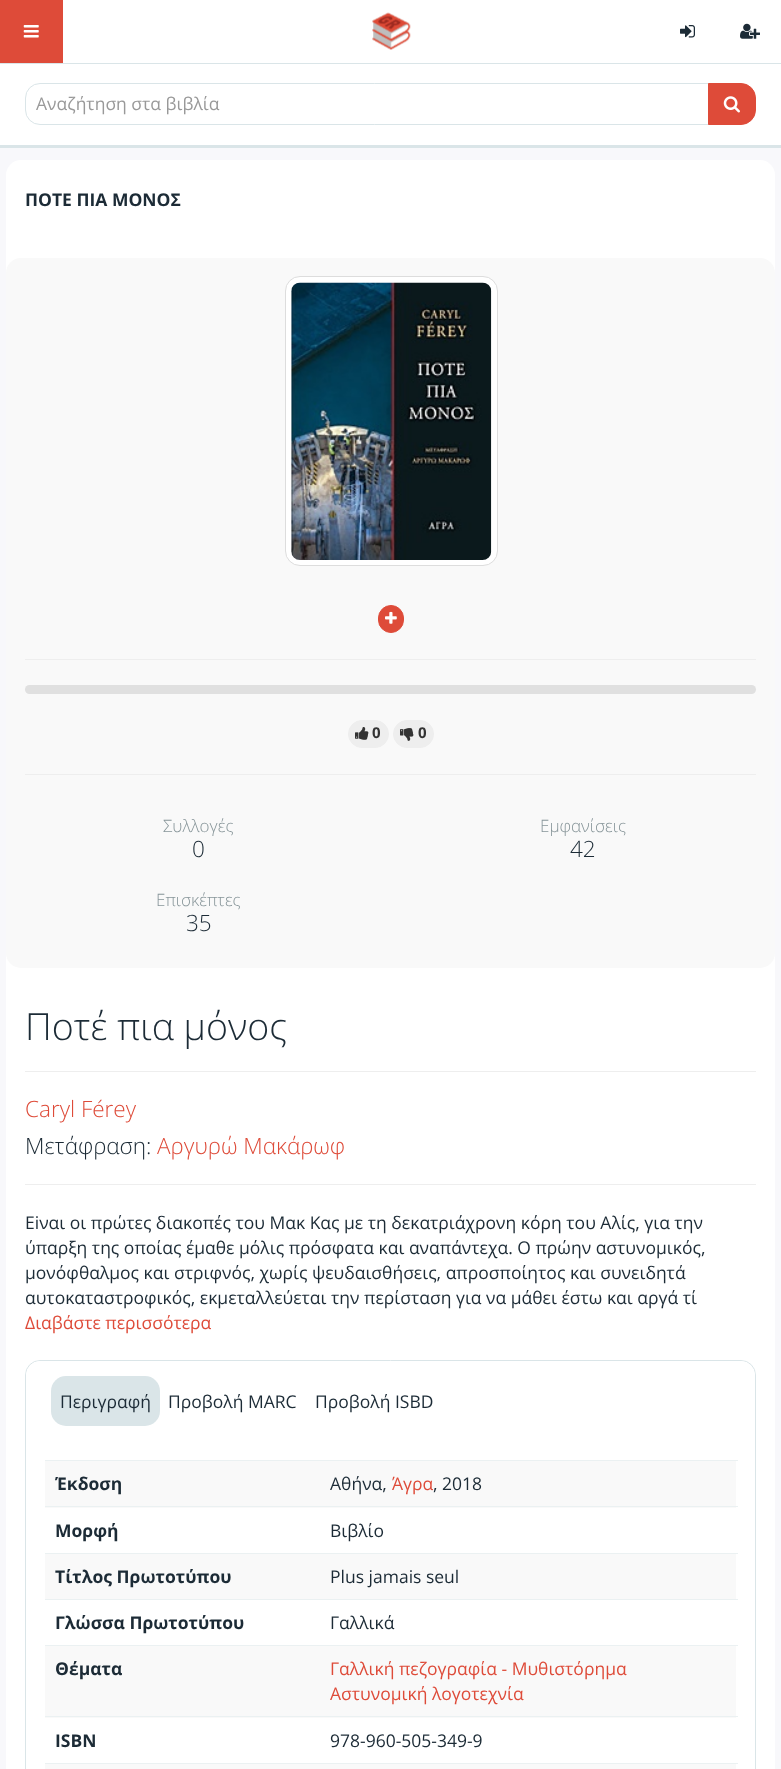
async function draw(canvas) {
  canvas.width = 781
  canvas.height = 1769
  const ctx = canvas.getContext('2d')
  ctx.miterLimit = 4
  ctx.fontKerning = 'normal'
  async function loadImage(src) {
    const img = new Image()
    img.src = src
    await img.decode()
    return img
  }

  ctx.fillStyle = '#f8f8fb'
  ctx.fillRect(0, 0, 781, 1769)
  ctx.fillStyle = '#fff'
  ctx.fillRect(63, 0, 718, 63)
  ctx.fillStyle = '#dae5e8'
  ctx.fillRect(0, 63, 781, 1)
  ctx.fillStyle = '#de4b39'
  ctx.fillRect(0, 0, 63, 63)
  ctx.drawImage(await loadImage('image0.png'), 23, 25, 16, 13)
  ctx.drawImage(await loadImage('image1.png'), 372, 12, 39, 38)
  ctx.drawImage(await loadImage('image2.png'), 680, 25, 15, 13)
  ctx.drawImage(await loadImage('image3.png'), 740, 23, 20, 16)
  ctx.fillStyle = '#fff'
  ctx.fillRect(0, 64, 781, 81)
  ctx.fillStyle = '#dae5e8'
  ctx.fillRect(0, 145, 781, 3)
  ctx.beginPath()
  ctx.roundRect(25.5, 83.5, 683, 41, [14.5, 0, 0, 14.5])
  ctx.strokeStyle = '#dae5e8'
  ctx.stroke()
  ctx.font = '17.5px Open Sans'
  ctx.fillStyle = '#999'
  ctx.fillText('Αναζήτηση στα βιβλία', 36, 110)
  ctx.fillStyle = '#de4b39'
  ctx.beginPath()
  ctx.roundRect(708.5, 83.5, 47, 41, [0, 14.5, 14.5, 0])
  ctx.fill()
  ctx.strokeStyle = '#de4b39'
  ctx.stroke()
  ctx.drawImage(await loadImage('image4.png'), 723, 96, 17, 17)
  ctx.fillStyle = '#fff'
  ctx.beginPath()
  ctx.roundRect(6, 160, 769, 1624, 15)
  ctx.fill()
  ctx.font = 'bold 17.5px Open Sans'
  ctx.fillStyle = '#1c2b36'
  ctx.fillText('ΠΟΤΕ ΠΙΑ ΜΟΝΟΣ', 25, 206)
  ctx.fillStyle = '#f9f9f9'
  ctx.beginPath()
  ctx.roundRect(6, 258, 769, 327, [15, 15, 0, 0])
  ctx.fill()
  ctx.fillStyle = '#fff'
  ctx.beginPath()
  ctx.roundRect(285.5, 276.5, 212, 289, 14.5)
  ctx.fill()
  ctx.strokeStyle = '#ddd'
  ctx.stroke()
  ctx.drawImage(await loadImage('image5.png'), 291, 282, 201, 278)
  ctx.fillStyle = '#f9f9f9'
  ctx.beginPath()
  ctx.roundRect(6, 585, 769, 383, [0, 0, 15, 15])
  ctx.fill()
  ctx.fillStyle = '#de4b39'
  ctx.beginPath()
  ctx.roundRect(378.5, 605.5, 25, 27, 12.5)
  ctx.fill()
  ctx.strokeStyle = '#de4b39'
  ctx.stroke()
  ctx.drawImage(await loadImage('image6.png'), 385, 611, 12, 13)
  ctx.fillStyle = '#eee'
  ctx.fillRect(25, 659, 731, 1)
  ctx.fillStyle = '#e0e0e0'
  ctx.beginPath()
  ctx.roundRect(25, 685, 731, 9, 4.5)
  ctx.fill()
  ctx.fillStyle = '#eee'
  ctx.beginPath()
  ctx.roundRect(348.5, 720.5, 40, 27, 13.5)
  ctx.fill()
  ctx.strokeStyle = '#eee'
  ctx.stroke()
  ctx.drawImage(await loadImage('image7.png'), 355, 727, 14, 13)
  ctx.font = 'bold 15px Open Sans'
  ctx.fillStyle = '#333'
  ctx.fillText('0', 372, 738)
  ctx.fillStyle = '#eee'
  ctx.beginPath()
  ctx.roundRect(393.5, 720.5, 40, 27, 13.5)
  ctx.fill()
  ctx.stroke()
  ctx.drawImage(await loadImage('image8.png'), 400, 728, 14, 13)
  ctx.fillStyle = '#333'
  ctx.fillText('0', 418, 738)
  ctx.fillStyle = '#eee'
  ctx.fillRect(25, 774, 731, 1)
  ctx.font = '300 17px Open Sans'
  ctx.fillStyle = '#879599'
  ctx.fillText('Συλλογές', 163, 832)
  ctx.font = '300 22.5px Open Sans'
  ctx.fillStyle = '#1c2b36'
  ctx.fillText('0', 192, 857)
  ctx.font = '300 17px Open Sans'
  ctx.fillStyle = '#879599'
  ctx.fillText('Εμφανίσεις', 540, 832)
  ctx.font = '300 22.5px Open Sans'
  ctx.fillStyle = '#1c2b36'
  ctx.fillText('42', 570, 857)
  ctx.font = '300 17px Open Sans'
  ctx.fillStyle = '#879599'
  ctx.fillText('Επισκέπτες', 156, 906)
  ctx.font = '300 22.5px Open Sans'
  ctx.fillStyle = '#1c2b36'
  ctx.fillText('35', 186, 931)
  ctx.font = '300 37.5px Open Sans'
  ctx.fillText('Ποτέ πια μόνος', 25, 1040)
  ctx.fillStyle = '#eee'
  ctx.fillRect(25, 1071, 731, 1)
  ctx.font = '300 22.5px Open Sans'
  ctx.fillStyle = '#de4b39'
  ctx.fillText('Caryl Férey', 25, 1117)
  ctx.fillStyle = '#1c2b36'
  ctx.fillText('Μετάφραση:', 25, 1154)
  ctx.fillStyle = '#de4b39'
  ctx.fillText('Αργυρώ Μακάρωφ', 157, 1154)
  ctx.fillStyle = '#eee'
  ctx.fillRect(25, 1184, 731, 1)
  ctx.font = '17.5px Open Sans'
  ctx.fillStyle = '#1c2b36'
  ctx.fillText('Eiναι οι πρώτες διακοπές του Μακ Κας με τη δεκατριάχρονη κόρη του Αλίς, για την', 25, 1229)
  ctx.fillText('ύπαρξη της οποίας έμαθε μόλις πρόσφατα και αναπάντεχα. Ο πρώην αστυνομικός,', 25, 1254)
  ctx.fillText('μονόφθαλμος και στριφνός, χωρίς ψευδαισθήσεις, απροσποίητος και συνειδητά', 25, 1279)
  ctx.fillText('αυτοκαταστροφικός, εκμεταλλεύεται την περίσταση για να μάθει έστω και αργά τί', 25, 1304)
  ctx.fillStyle = '#de4b39'
  ctx.fillText('Διαβάστε περισσότερα', 25, 1329)
  ctx.beginPath()
  ctx.roundRect(25.5, 1360.5, 730, 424, 14.5)
  ctx.strokeStyle = '#dae5e8'
  ctx.stroke()
  ctx.fillStyle = '#fff'
  ctx.beginPath()
  ctx.roundRect(26, 1361, 729, 74, [15, 15, 0, 0])
  ctx.fill()
  ctx.fillStyle = '#dae5e8'
  ctx.beginPath()
  ctx.roundRect(51, 1376, 109, 50, 15)
  ctx.fill()
  ctx.fillStyle = '#1c2b36'
  ctx.fillText('Περιγραφή', 60, 1408)
  ctx.fillText('Προβολή MARC', 168, 1408)
  ctx.fillText('Προβολή ISBD', 315, 1408)
  ctx.fillStyle = '#f9f9f9'
  ctx.fillRect(45, 1461, 691, 47)
  ctx.font = 'bold 17.5px Open Sans'
  ctx.fillStyle = '#1c2b36'
  ctx.fillText('Έκδοση', 55, 1490)
  ctx.fillStyle = '#ebf1f2'
  ctx.fillRect(45, 1460, 693, 1)
  ctx.font = '17.5px Open Sans'
  ctx.fillStyle = '#1c2b36'
  ctx.fillText('Αθήνα,', 330, 1490)
  ctx.fillStyle = '#de4b39'
  ctx.fillText('Άγρα', 392, 1490)
  ctx.fillStyle = '#1c2b36'
  ctx.fillText(', 2018', 433, 1490)
  ctx.font = 'bold 17.5px Open Sans'
  ctx.fillText('Μορφή', 55, 1537)
  ctx.fillStyle = '#ebf1f2'
  ctx.fillRect(45, 1506, 693, 1)
  ctx.font = '17.5px Open Sans'
  ctx.fillStyle = '#1c2b36'
  ctx.fillText('Βιβλίο', 330, 1537)
  ctx.fillStyle = '#f9f9f9'
  ctx.fillRect(45, 1554, 691, 45)
  ctx.font = 'bold 17.5px Open Sans'
  ctx.fillStyle = '#1c2b36'
  ctx.fillText('Τίτλος Πρωτοτύπου', 55, 1583)
  ctx.fillStyle = '#ebf1f2'
  ctx.fillRect(45, 1553, 693, 1)
  ctx.font = '17.5px Open Sans'
  ctx.fillStyle = '#1c2b36'
  ctx.fillText('Plus jamais seul', 330, 1583)
  ctx.font = 'bold 17.5px Open Sans'
  ctx.fillText('Γλώσσα Πρωτοτύπου', 55, 1629)
  ctx.fillStyle = '#ebf1f2'
  ctx.fillRect(45, 1599, 693, 1)
  ctx.font = '17.5px Open Sans'
  ctx.fillStyle = '#1c2b36'
  ctx.fillText('Γαλλικά', 330, 1629)
  ctx.fillStyle = '#f9f9f9'
  ctx.fillRect(45, 1646, 691, 72)
  ctx.font = 'bold 17.5px Open Sans'
  ctx.fillStyle = '#1c2b36'
  ctx.fillText('Θέματα', 55, 1675)
  ctx.fillStyle = '#ebf1f2'
  ctx.fillRect(45, 1645, 693, 1)
  ctx.font = '17.5px Open Sans'
  ctx.fillStyle = '#de4b39'
  ctx.fillText('Γαλλική πεζογραφία - Μυθιστόρημα', 330, 1675)
  ctx.fillText('Αστυνομική λογοτεχνία', 330, 1700)
  ctx.font = 'bold 17.5px Open Sans'
  ctx.fillStyle = '#1c2b36'
  ctx.fillText('ISBN', 55, 1747)
  ctx.fillStyle = '#ebf1f2'
  ctx.fillRect(45, 1716, 693, 1)
  ctx.font = '17.5px Open Sans'
  ctx.fillStyle = '#1c2b36'
  ctx.fillText('978-960-505-349-9', 330, 1747)
  ctx.fillStyle = '#f9f9f9'
  ctx.fillRect(45, 1764, 691, 5)
  ctx.fillStyle = '#ebf1f2'
  ctx.fillRect(45, 1763, 693, 1)
}

draw(document.querySelector('canvas'))
